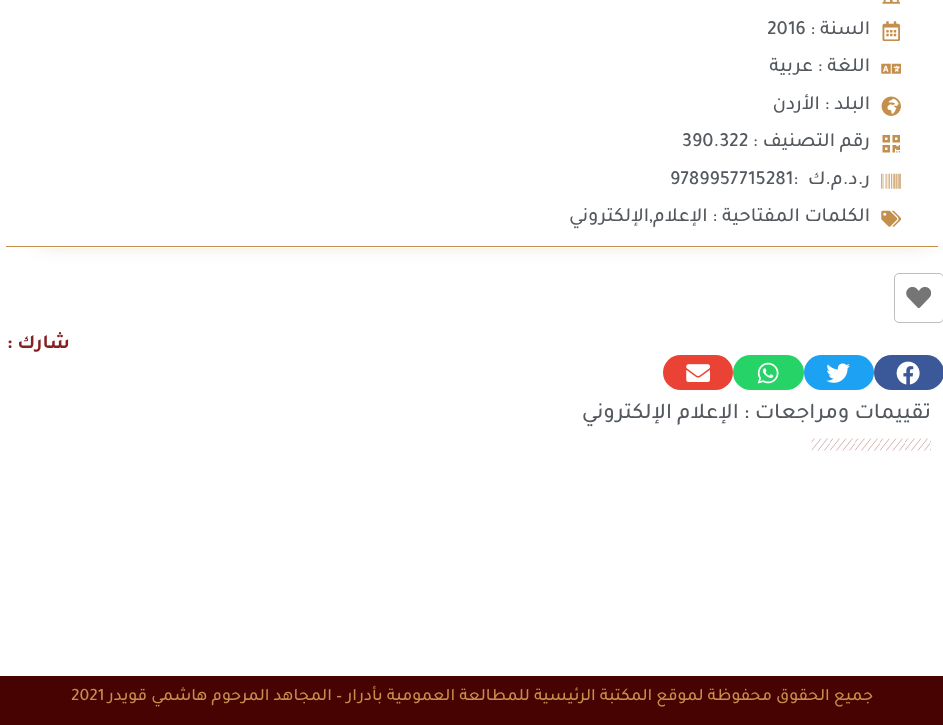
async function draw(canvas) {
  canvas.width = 943
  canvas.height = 725
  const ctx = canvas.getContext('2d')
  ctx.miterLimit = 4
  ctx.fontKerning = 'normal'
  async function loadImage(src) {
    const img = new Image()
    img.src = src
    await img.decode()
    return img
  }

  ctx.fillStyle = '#fff'
  ctx.fillRect(0, 0, 943, 725)
  ctx.fillStyle = '#baa57580'
  ctx.filter = 'blur(11px)'
  ctx.beginPath()
  ctx.rect(39, -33, 889, 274)
  ctx.fill()
  ctx.filter = 'none'
  ctx.fillStyle = '#fff'
  ctx.beginPath()
  ctx.roundRect(0, -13, 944, 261, 13)
  ctx.fill()
  ctx.fillStyle = '#c48e4c'
  ctx.fillRect(6, 246, 932, 1)
  ctx.drawImage(await loadImage('image0.png'), 882, 0, 18, 4)
  ctx.drawImage(await loadImage('image1.png'), 882, 21, 18, 20)
  ctx.direction = 'rtl'
  ctx.font = '500 20px Tajawal'
  ctx.fillStyle = '#54595f'
  ctx.fillText('السنة :', 870, 34)
  ctx.direction = 'ltr'
  ctx.fillText('2016', 767, 34)
  ctx.drawImage(await loadImage('image2.png'), 881, 63, 20, 11)
  ctx.direction = 'rtl'
  ctx.fillText('اللغة : عربية', 870, 71)
  ctx.drawImage(await loadImage('image3.png'), 881, 96, 20, 20)
  ctx.fillText('البلد : الأردن', 870, 109)
  ctx.drawImage(await loadImage('image4.png'), 882, 135, 18, 18)
  ctx.fillText('رقم التصنيف :', 870, 146)
  ctx.direction = 'ltr'
  ctx.fillText('390.322', 682, 146)
  ctx.drawImage(await loadImage('image5.png'), 881, 173, 20, 16)
  ctx.direction = 'rtl'
  ctx.fillText('ر.د.م.ك', 870, 184)
  ctx.direction = 'ltr'
  ctx.fillText('9789957715281:', 670, 184)
  ctx.drawImage(await loadImage('image6.png'), 881, 210, 20, 17)
  ctx.direction = 'rtl'
  ctx.fillText('الكلمات المفتاحية : الإعلام,الإلكتروني', 870, 221)
  ctx.beginPath()
  ctx.roundRect(894.5, 273.5, 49, 49, 4.5)
  ctx.strokeStyle = '#bdbdbd'
  ctx.stroke()
  ctx.drawImage(await loadImage('image7.png'), 906, 286, 25, 23)
  ctx.font = 'bold 20px Tajawal'
  ctx.fillStyle = '#882021'
  ctx.fillText('شارك :', 70, 348)
  ctx.fillStyle = '#3b5998'
  ctx.beginPath()
  ctx.roundRect(874, 355, 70, 35, 17.5)
  ctx.fill()
  ctx.drawImage(await loadImage('image8.png'), 896, 361, 24, 24)
  ctx.fillStyle = '#1da1f2'
  ctx.beginPath()
  ctx.roundRect(804, 355, 70, 35, 17.5)
  ctx.fill()
  ctx.drawImage(await loadImage('image9.png'), 826, 363, 24, 20)
  ctx.fillStyle = '#25d366'
  ctx.beginPath()
  ctx.roundRect(733, 355, 71, 35, 17.5)
  ctx.fill()
  ctx.drawImage(await loadImage('image10.png'), 757, 362, 22, 22)
  ctx.fillStyle = '#ea4335'
  ctx.beginPath()
  ctx.roundRect(663, 355, 70, 35, 17.5)
  ctx.fill()
  ctx.drawImage(await loadImage('image11.png'), 686, 364, 24, 18)
  ctx.font = '500 22.5px Tajawal'
  ctx.fillStyle = '#54595f'
  ctx.fillText('تقييمات ومراجعات : الإعلام الإلكتروني', 931, 418)
  ctx.drawImage(await loadImage('image12.png'), 811, 438, 120, 13)
  ctx.fillStyle = '#470202'
  ctx.fillRect(0, 676, 943, 49)
  ctx.font = '500 17.5px Tajawal'
  ctx.fillStyle = '#c48e4c'
  ctx.fillText('جميع الحقوق محفوظة لموقع المكتبة الرئيسية للمطالعة العمومية بأدرار – المجاهد المرحوم هاشمي قويدر', 873, 700)
  ctx.direction = 'ltr'
  ctx.fillText('2021', 71, 700)
}

draw(document.querySelector('canvas'))
